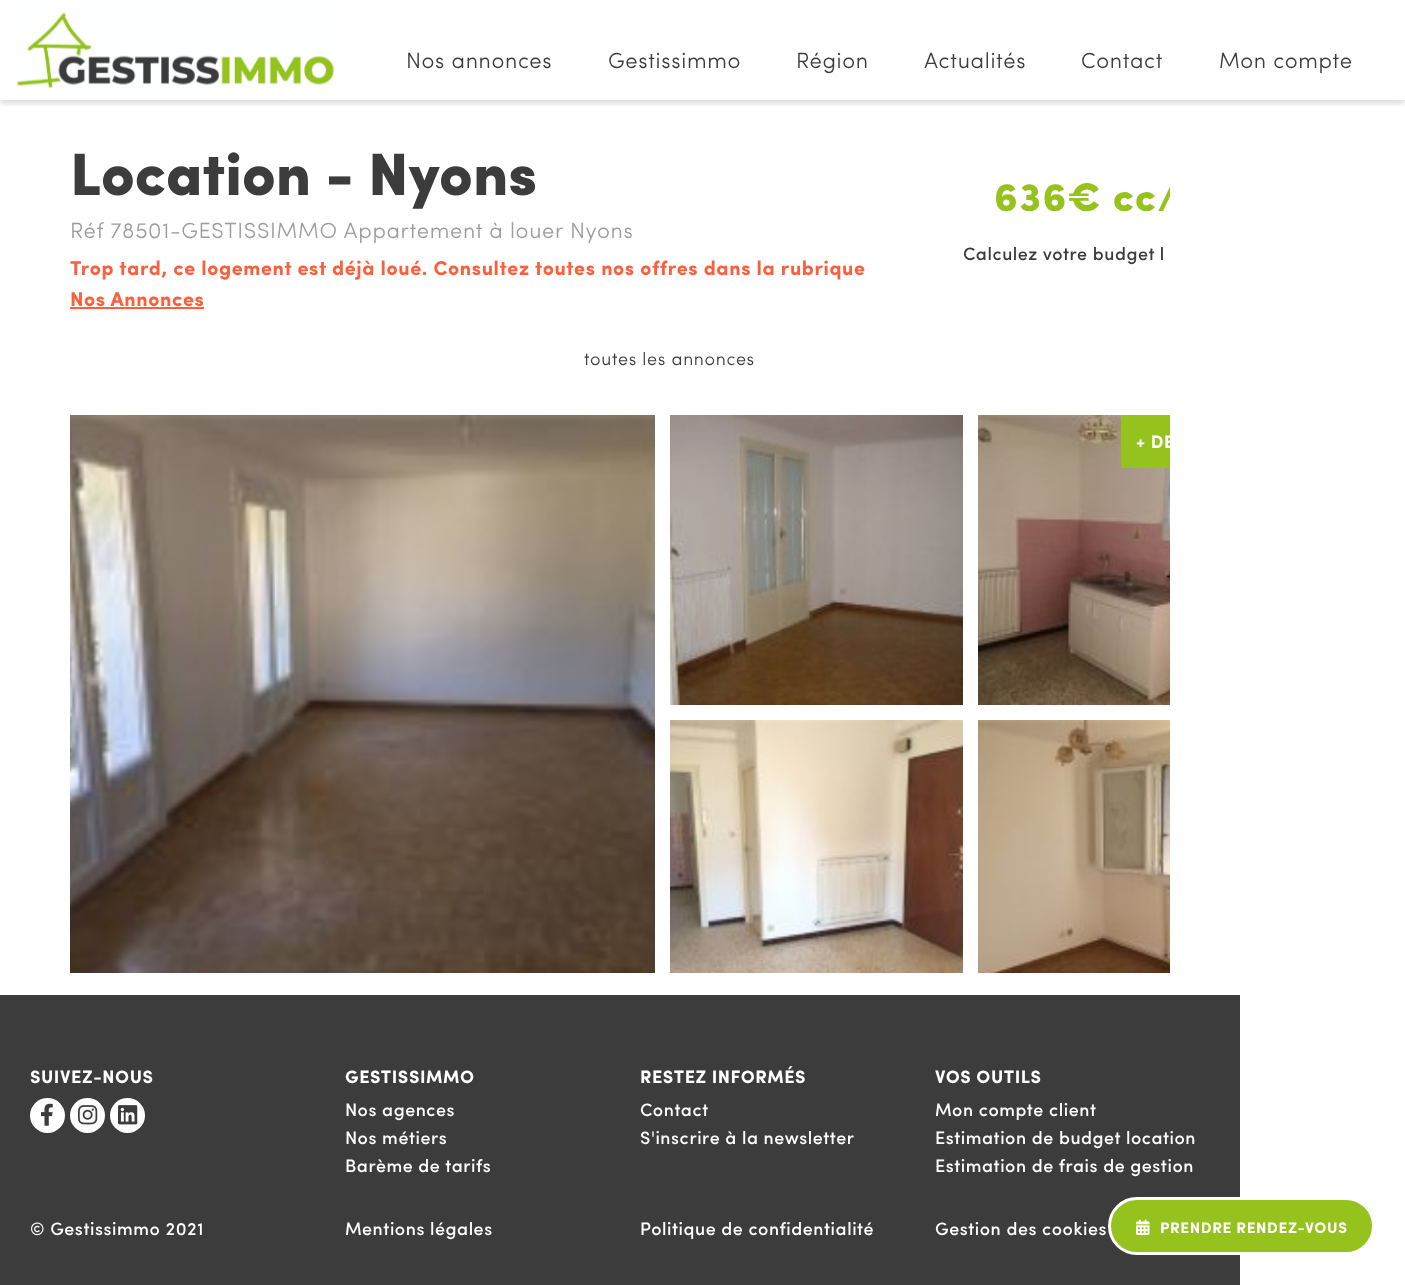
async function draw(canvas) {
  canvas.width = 1405
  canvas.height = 1285
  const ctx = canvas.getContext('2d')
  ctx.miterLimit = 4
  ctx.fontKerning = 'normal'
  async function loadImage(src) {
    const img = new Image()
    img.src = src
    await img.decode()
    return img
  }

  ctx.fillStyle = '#fff'
  ctx.fillRect(0, 0, 1405, 1285)
  ctx.save()
  ctx.beginPath()
  ctx.rect(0, 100, 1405, 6)
  ctx.clip()
  ctx.fillStyle = '#00000029'
  ctx.filter = 'blur(3px)'
  ctx.beginPath()
  ctx.rect(0, 3, 1405, 100)
  ctx.fill()
  ctx.filter = 'none'
  ctx.restore()
  ctx.drawImage(await loadImage('image0.png'), 17, 12, 317, 77)
  ctx.letterSpacing = '0.65px'
  ctx.font = '300 22px Sofia'
  ctx.fillStyle = '#3c3c3c'
  ctx.fillText('Nos annonces', 406, 68)
  ctx.fillText('Gestissimmo', 608, 68)
  ctx.fillText('Région', 796, 68)
  ctx.fillText('Actualités', 924, 68)
  ctx.fillText('Contact', 1081, 68)
  ctx.fillText('Mon compte', 1219, 68)
  ctx.letterSpacing = '0px'
  ctx.font = '900 60px Sofia'
  ctx.fillText('Location - Nyons', 70, 195)
  ctx.letterSpacing = '0.65px'
  ctx.font = '300 22px Sofia'
  ctx.fillStyle = '#9d9d9d'
  ctx.fillText('Réf 78501-GESTISSIMMO Appartement à louer Nyons', 70, 238)
  ctx.letterSpacing = '0.6px'
  ctx.font = 'bold 20px Sofia'
  ctx.fillStyle = '#fa603d'
  ctx.fillText('Trop tard, ce logement est déjà loué. Consultez toutes nos offres dans la rubrique', 70, 275)
  ctx.fillText('Nos Annonces', 70, 306)
  ctx.fillRect(70, 307, 134, 2)
  ctx.save()
  ctx.beginPath()
  ctx.rect(70, 100, 1100, 873)
  ctx.clip()
  ctx.letterSpacing = '1.25px'
  ctx.font = '900 40px Sofia'
  ctx.fillStyle = '#95c21d'
  ctx.fillText('636€ cc/', 994, 211)
  ctx.restore()
  ctx.letterSpacing = '0.55px'
  ctx.font = '500 18px Sofia'
  ctx.fillStyle = '#3c3c3c'
  ctx.fillText('Calculez votre budget l', 963, 260)
  ctx.letterSpacing = '0.65px'
  ctx.font = '300 18px Sofia'
  ctx.fillText('toutes les annonces', 584, 365)
  ctx.drawImage(await loadImage('image1.png'), 70, 415, 585, 558)
  ctx.drawImage(await loadImage('image2.png'), 670, 415, 293, 290)
  ctx.drawImage(await loadImage('image3.png'), 978, 415, 192, 290)
  ctx.fillStyle = '#95c21d'
  ctx.fillRect(1121, 415, 49, 53)
  ctx.save()
  ctx.beginPath()
  ctx.rect(70, 100, 1100, 873)
  ctx.clip()
  ctx.letterSpacing = '0.55px'
  ctx.font = 'bold 18px Sofia'
  ctx.fillStyle = '#fff'
  ctx.fillText('+ DE', 1136, 448)
  ctx.restore()
  ctx.drawImage(await loadImage('image4.png'), 670, 720, 293, 253)
  ctx.drawImage(await loadImage('image5.png'), 978, 720, 192, 253)
  ctx.fillStyle = '#3c3c3c'
  ctx.fillRect(0, 995, 1240, 290)
  ctx.letterSpacing = '0.55px'
  ctx.font = 'bold 18px Sofia'
  ctx.fillStyle = '#fff'
  ctx.fillText('SUIVEZ-NOUS', 30, 1083)
  ctx.beginPath()
  ctx.arc(47.5, 1115.5, 17.5, 0, 2 * Math.PI)
  ctx.fill()
  ctx.drawImage(await loadImage('image6.png'), 41, 1103, 12, 23)
  ctx.beginPath()
  ctx.arc(87.5, 1115.5, 17.5, 0, 2 * Math.PI)
  ctx.fill()
  ctx.drawImage(await loadImage('image7.png'), 78, 1105, 20, 20)
  ctx.beginPath()
  ctx.arc(127.5, 1115.5, 17.5, 0, 2 * Math.PI)
  ctx.fill()
  ctx.drawImage(await loadImage('image8.png'), 118, 1105, 20, 20)
  ctx.fillText('GESTISSIMMO', 345, 1083)
  ctx.font = '500 18px Sofia'
  ctx.fillText('Nos agences', 345, 1116)
  ctx.fillText('Nos métiers', 345, 1144)
  ctx.fillText('Barème de tarifs', 345, 1172)
  ctx.font = 'bold 18px Sofia'
  ctx.fillText('RESTEZ INFORMÉS', 640, 1083)
  ctx.font = '500 18px Sofia'
  ctx.fillText('Contact', 640, 1116)
  ctx.fillText('S\'inscrire à la newsletter', 640, 1144)
  ctx.font = 'bold 18px Sofia'
  ctx.fillText('VOS OUTILS', 935, 1083)
  ctx.font = '500 18px Sofia'
  ctx.fillText('Mon compte client', 935, 1116)
  ctx.fillText('Estimation de budget location', 935, 1144)
  ctx.fillText('Estimation de frais de gestion', 935, 1172)
  ctx.fillText('© Gestissimmo 2021', 30, 1235)
  ctx.fillText('Mentions légales', 345, 1235)
  ctx.fillText('Politique de confidentialité', 640, 1235)
  ctx.fillText('Gestion des cookies', 935, 1235)
  ctx.fillStyle = '#95c21d'
  ctx.beginPath()
  ctx.roundRect(1109.5, 1198.5, 264, 55, 27.5)
  ctx.fill()
  ctx.strokeStyle = '#fff'
  ctx.lineWidth = 3
  ctx.stroke()
  ctx.drawImage(await loadImage('image9.png'), 1136, 1219, 14, 16)
  ctx.font = 'bold 15.4px Sofia'
  ctx.fillStyle = '#fff'
  ctx.fillText('PRENDRE RENDEZ-VOUS', 1160, 1233)
}

draw(document.querySelector('canvas'))
